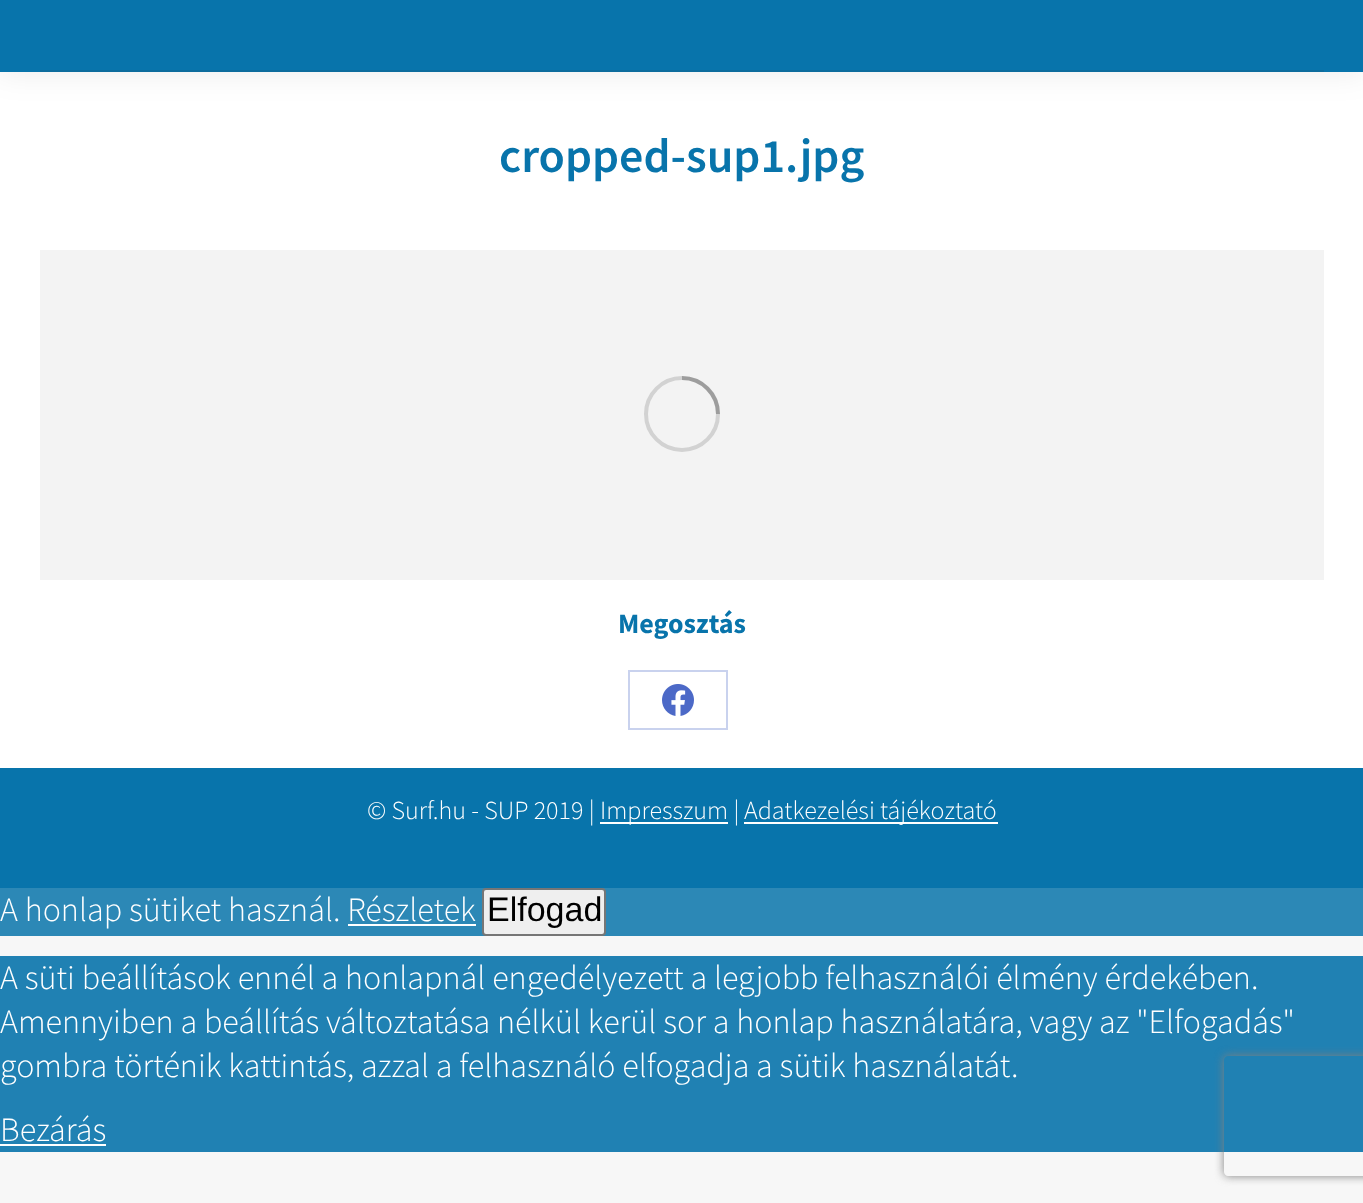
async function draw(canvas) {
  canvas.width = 1363
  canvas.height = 1203
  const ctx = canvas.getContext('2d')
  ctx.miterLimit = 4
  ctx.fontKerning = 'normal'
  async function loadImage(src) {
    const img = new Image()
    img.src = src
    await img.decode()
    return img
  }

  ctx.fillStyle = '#f7f7f7'
  ctx.fillRect(0, 0, 1363, 1203)
  ctx.fillStyle = '#fff'
  ctx.fillRect(0, 72, 1363, 696)
  ctx.fillStyle = '#00000012'
  ctx.filter = 'blur(15px)'
  ctx.beginPath()
  ctx.rect(-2, -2, 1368, 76)
  ctx.fill()
  ctx.filter = 'none'
  ctx.fillStyle = '#0874ab'
  ctx.fillRect(0, 0, 1363, 72)
  ctx.fillStyle = '#0d6c9d'
  ctx.fillRect(40, 70, 1284, 2)
  ctx.font = '600 48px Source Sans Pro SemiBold'
  ctx.fillStyle = '#0874ab'
  ctx.fillText('cropped-sup1.jpg', 499, 172)
  ctx.fillStyle = '#f3f3f3'
  ctx.fillRect(40, 250, 1284, 330)
  ctx.beginPath()
  ctx.arc(682, 414, 36, 0, 2 * Math.PI)
  ctx.strokeStyle = '#d2d2d2'
  ctx.lineWidth = 4
  ctx.stroke()
  ctx.beginPath()
  ctx.moveTo(718, 414)
  ctx.bezierCurveTo(718, 394, 702, 378, 682, 378)
  ctx.strokeStyle = '#00000040'
  ctx.stroke()
  ctx.font = 'bold 28px Source Sans Pro'
  ctx.fillStyle = '#0874ab'
  ctx.fillText('Megosztás', 618, 633)
  ctx.strokeStyle = '#c9d2ee'
  ctx.lineWidth = 2
  ctx.strokeRect(629, 671, 98, 58)
  ctx.drawImage(await loadImage('image0.png'), 662, 684, 32, 32)
  ctx.fillRect(0, 768, 1363, 120)
  ctx.font = '300 26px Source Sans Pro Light'
  ctx.fillStyle = '#fff'
  ctx.fillText('© Surf.hu - SUP 2019 |', 367, 819)
  ctx.fillRect(600, 822, 128, 2)
  ctx.fillText('Impresszum |', 600, 819)
  ctx.fillRect(744, 822, 254, 2)
  ctx.fillText('Adatkezelési tájékoztató', 744, 819)
  ctx.fillStyle = '#2c88b6'
  ctx.fillRect(0, 888, 1363, 48)
  ctx.font = '300 34px Source Sans Pro Light'
  ctx.fillStyle = '#fff'
  ctx.fillText('A honlap sütiket használ. Részletek', 0, 921)
  ctx.fillStyle = '#efefef'
  ctx.beginPath()
  ctx.roundRect(483, 889, 122, 46, 3)
  ctx.fill()
  ctx.strokeStyle = '#767676'
  ctx.stroke()
  ctx.font = '34px Liberation Sans'
  ctx.fillStyle = '#000'
  ctx.fillText('Elfogad', 487, 921)
  ctx.fillStyle = '#fff'
  ctx.fillRect(348, 924, 128, 2)
  ctx.fillStyle = '#2081b3'
  ctx.fillRect(0, 956, 1363, 196)
  ctx.font = '300 34px Source Sans Pro Light'
  ctx.fillStyle = '#fff'
  ctx.fillText('A süti beállítások ennél a honlapnál engedélyezett a legjobb felhasználói élmény érdekében.', 0, 989)
  ctx.fillText('Amennyiben a beállítás változtatása nélkül kerül sor a honlap használatára, vagy az "Elfogadás"', 0, 1033)
  ctx.fillText('gombra történik kattintás, azzal a felhasználó elfogadja a sütik használatát.', 0, 1077)
  ctx.fillText('Bezárás', 0, 1141)
  ctx.fillRect(0, 1144, 106, 2)
  ctx.save()
  ctx.beginPath()
  ctx.moveTo(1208, 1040)
  ctx.lineTo(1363, 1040)
  ctx.lineTo(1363, 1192)
  ctx.lineTo(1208, 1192)
  ctx.closePath()
  ctx.moveTo(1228, 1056)
  ctx.lineTo(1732, 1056)
  ctx.bezierCurveTo(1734, 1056, 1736, 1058, 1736, 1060)
  ctx.lineTo(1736, 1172)
  ctx.bezierCurveTo(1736, 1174, 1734, 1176, 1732, 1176)
  ctx.lineTo(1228, 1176)
  ctx.bezierCurveTo(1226, 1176, 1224, 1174, 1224, 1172)
  ctx.lineTo(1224, 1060)
  ctx.bezierCurveTo(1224, 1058, 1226, 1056, 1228, 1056)
  ctx.closePath()
  ctx.clip('evenodd')
  ctx.fillStyle = '#808080'
  ctx.filter = 'blur(5px)'
  ctx.beginPath()
  ctx.roundRect(1224, 1056, 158, 120, 4)
  ctx.fill()
  ctx.filter = 'none'
  ctx.restore()
}

draw(document.querySelector('canvas'))
